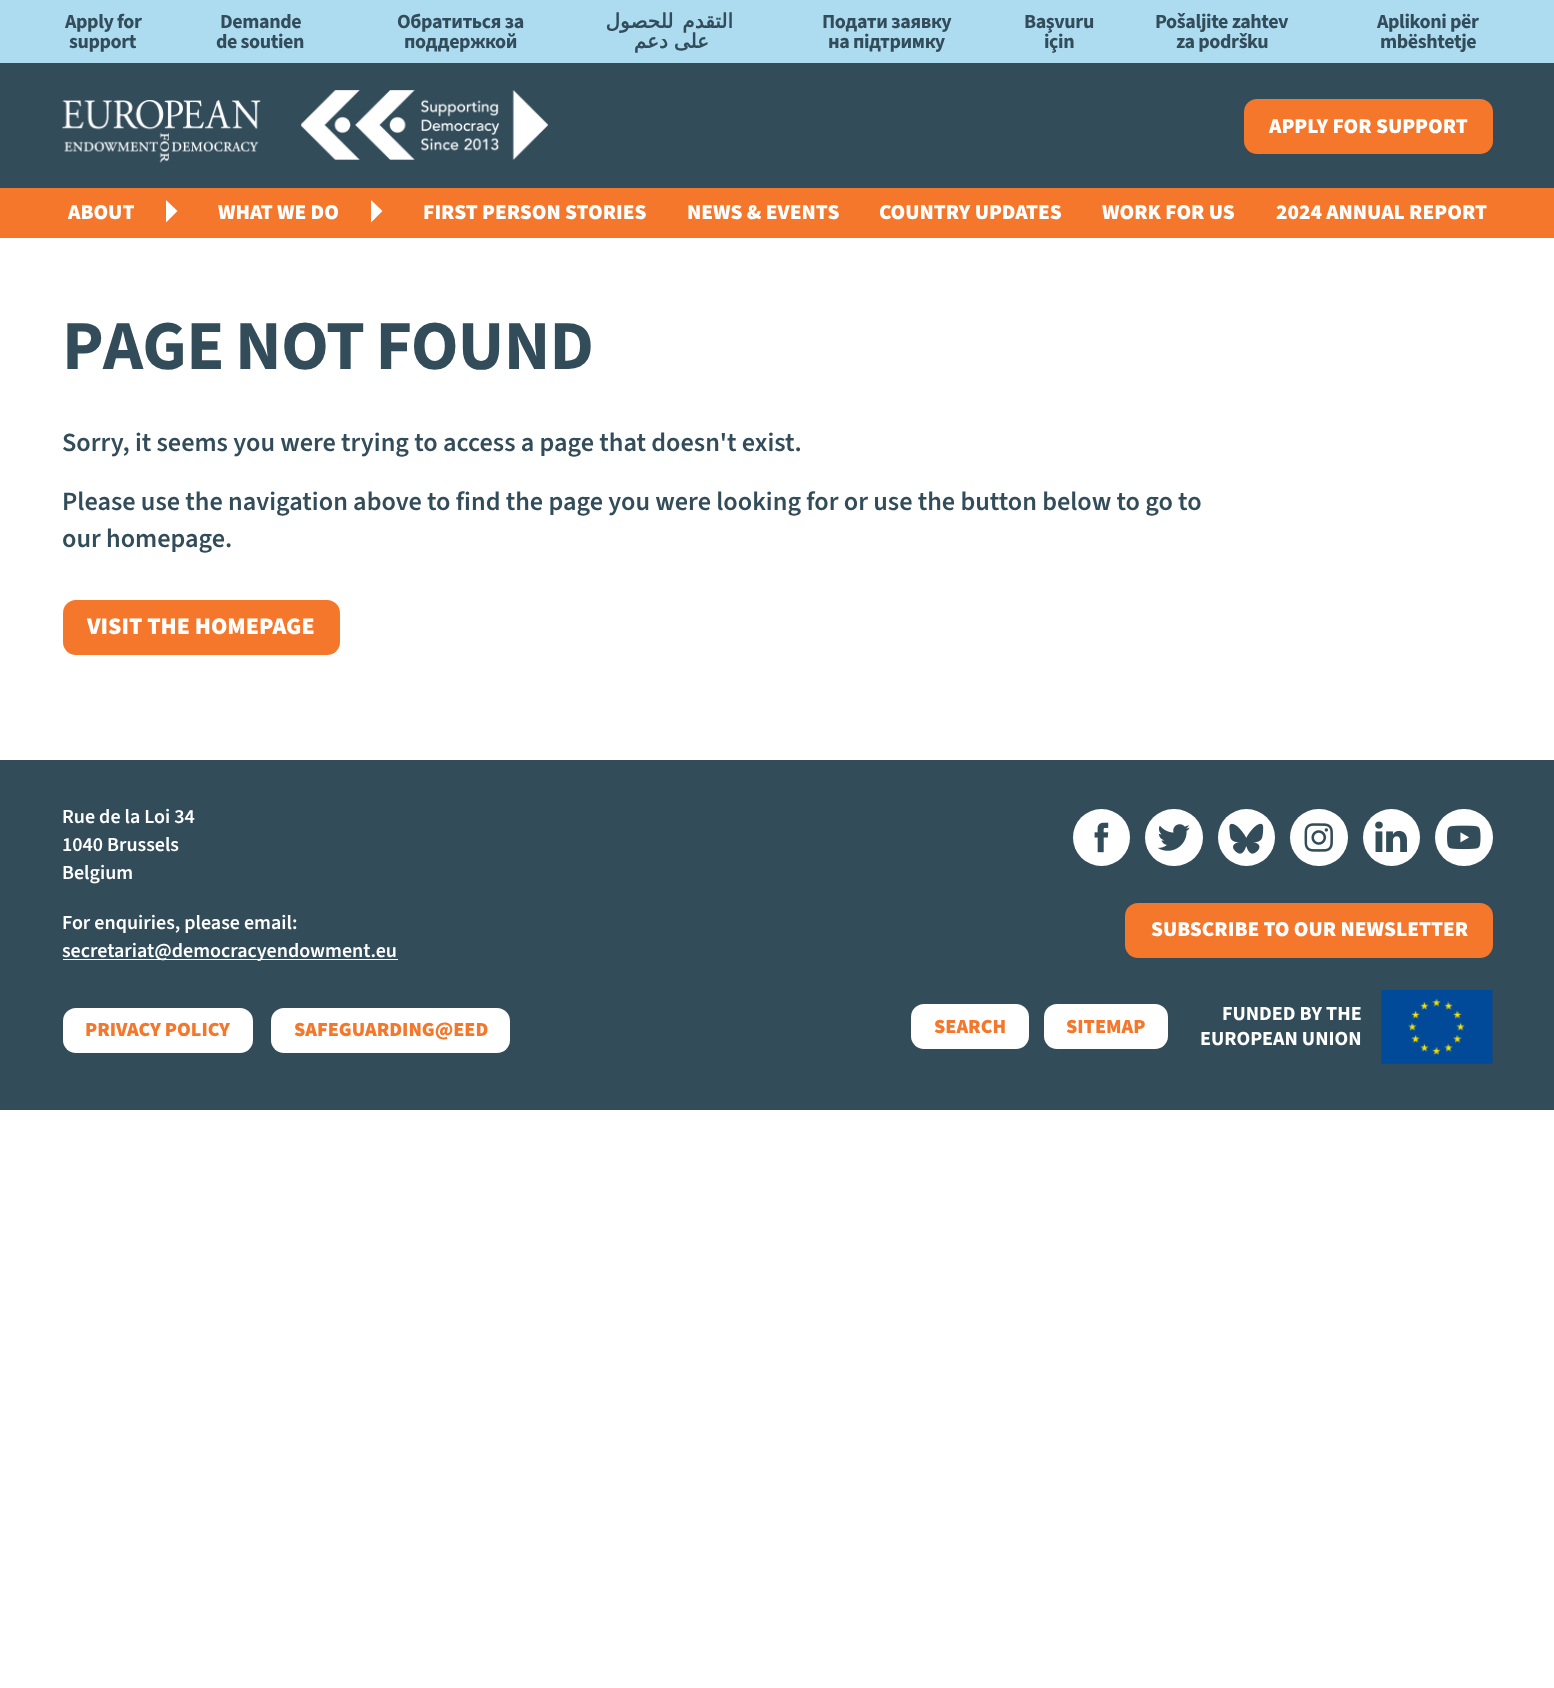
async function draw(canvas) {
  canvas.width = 1554
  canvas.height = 1688
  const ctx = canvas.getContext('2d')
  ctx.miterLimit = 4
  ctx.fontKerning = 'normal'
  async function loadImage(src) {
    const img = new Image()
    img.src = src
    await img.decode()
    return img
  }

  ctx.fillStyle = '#fff'
  ctx.fillRect(0, 0, 1554, 1688)
  ctx.fillStyle = '#addbf0'
  ctx.fillRect(0, 0, 1554, 63)
  ctx.letterSpacing = '-0.4px'
  ctx.font = 'bold 20px "Source Sans 3"'
  ctx.fillStyle = '#324c5a'
  ctx.fillText('Apply for', 65, 28)
  ctx.fillText('support', 69, 48)
  ctx.fillText('Demande', 220, 28)
  ctx.fillText('de soutien', 216, 48)
  ctx.fillText('Обратиться за', 397, 28)
  ctx.fillText('поддержкой', 404, 48)
  ctx.wordSpacing = '3px'
  ctx.direction = 'rtl'
  ctx.font = 'bold 20px DejaVu Sans'
  ctx.fillText('التقدم للحصول', 733, 28)
  ctx.wordSpacing = '0px'
  ctx.fillText('على دعم', 709, 48)
  ctx.direction = 'ltr'
  ctx.font = 'bold 20px "Source Sans 3"'
  ctx.fillText('Подати заявку', 822, 28)
  ctx.fillText('на підтримку', 828, 48)
  ctx.fillText('Başvuru', 1024, 28)
  ctx.fillText('için', 1044, 48)
  ctx.fillText('Pošaljite zahtev', 1155, 28)
  ctx.fillText('za podršku', 1176, 48)
  ctx.fillText('Aplikoni për', 1377, 28)
  ctx.fillText('mbështetje', 1380, 48)
  ctx.fillRect(0, 63, 1554, 125)
  ctx.drawImage(await loadImage('image0.png'), 62, 100, 199, 63)
  ctx.drawImage(await loadImage('image1.png'), 301, 90, 247, 70)
  ctx.fillStyle = '#f4772b'
  ctx.beginPath()
  ctx.roundRect(1244, 99, 249, 55, 13)
  ctx.fill()
  ctx.letterSpacing = '0px'
  ctx.font = '900 21.25px "Source Sans 3"'
  ctx.fillStyle = '#fff'
  ctx.fillText('APPLY FOR SUPPORT', 1269, 133)
  ctx.fillStyle = '#f4772b'
  ctx.fillRect(0, 188, 1554, 50)
  ctx.fillStyle = '#fff'
  ctx.fillText('ABOUT', 68, 219)
  ctx.beginPath()
  ctx.moveTo(166, 222.5)
  ctx.lineTo(166, 200)
  ctx.lineTo(177.5, 211)
  ctx.closePath()
  ctx.fill()
  ctx.fillText('WHAT WE DO', 218, 219)
  ctx.beginPath()
  ctx.moveTo(371, 222.5)
  ctx.lineTo(371, 200)
  ctx.lineTo(382.5, 211)
  ctx.closePath()
  ctx.fill()
  ctx.fillText('FIRST PERSON STORIES', 423, 219)
  ctx.fillText('NEWS & EVENTS', 687, 219)
  ctx.fillText('COUNTRY UPDATES', 879, 219)
  ctx.fillText('WORK FOR US', 1102, 219)
  ctx.fillText('2024 ANNUAL REPORT', 1276, 219)
  ctx.letterSpacing = '-0.75px'
  ctx.wordSpacing = '-2px'
  ctx.font = 'bold 70px "Source Sans 3"'
  ctx.fillStyle = '#324c5a'
  ctx.fillText('PAGE NOT FOUND', 62, 369)
  ctx.letterSpacing = '0px'
  ctx.wordSpacing = '0px'
  ctx.font = '600 26.25px "Source Sans 3"'
  ctx.fillText('Sorry, it seems you were trying to access a page that doesn\'t exist.', 62, 451)
  ctx.fillText('Please use the navigation above to find the page you were looking for or use the button below to go to', 62, 510)
  ctx.fillText('our homepage.', 62, 547)
  ctx.fillStyle = '#f4772b'
  ctx.beginPath()
  ctx.roundRect(63, 600, 277, 55, 13)
  ctx.fill()
  ctx.font = '900 23.75px "Source Sans 3"'
  ctx.fillStyle = '#fff'
  ctx.fillText('VISIT THE HOMEPAGE', 87, 634)
  ctx.fillStyle = '#324c5a'
  ctx.fillRect(0, 760, 1554, 350)
  ctx.font = '600 20px "Source Sans 3"'
  ctx.fillStyle = '#fff'
  ctx.fillText('Rue de la Loi 34', 62, 823)
  ctx.fillText('1040 Brussels', 62, 851)
  ctx.fillText('Belgium', 62, 879)
  ctx.fillText('For enquiries, please email:', 62, 929)
  ctx.fillRect(63, 959, 335, 1)
  ctx.fillText('secretariat@democracyendowment.eu', 62, 957)
  ctx.beginPath()
  ctx.roundRect(63, 1008, 190, 45, 13)
  ctx.fill()
  ctx.font = '900 20px "Source Sans 3"'
  ctx.fillStyle = '#f4772b'
  ctx.fillText('PRIVACY POLICY', 85, 1036)
  ctx.fillStyle = '#fff'
  ctx.beginPath()
  ctx.roundRect(271, 1008, 239, 45, 13)
  ctx.fill()
  ctx.fillStyle = '#f4772b'
  ctx.fillText('SAFEGUARDING@EED', 294, 1036)
  ctx.fillStyle = '#fff'
  ctx.beginPath()
  ctx.arc(1101.5, 837.5, 28.5, 0, 2 * Math.PI)
  ctx.fill()
  ctx.drawImage(await loadImage('image2.png'), 1094, 822, 15, 31)
  ctx.beginPath()
  ctx.roundRect(1145, 809, 58, 57, 28.5)
  ctx.fill()
  ctx.drawImage(await loadImage('image3.png'), 1157, 824, 33, 27)
  ctx.beginPath()
  ctx.arc(1246.5, 837.5, 28.5, 0, 2 * Math.PI)
  ctx.fill()
  ctx.drawImage(await loadImage('image4.png'), 1229, 823, 35, 31)
  ctx.beginPath()
  ctx.roundRect(1290, 809, 58, 57, 28.5)
  ctx.fill()
  ctx.drawImage(await loadImage('image5.png'), 1304, 823, 29, 29)
  ctx.beginPath()
  ctx.arc(1391.5, 837.5, 28.5, 0, 2 * Math.PI)
  ctx.fill()
  ctx.drawImage(await loadImage('image6.png'), 1375, 821, 32, 31)
  ctx.beginPath()
  ctx.roundRect(1435, 809, 58, 57, 28.5)
  ctx.fill()
  ctx.drawImage(await loadImage('image7.png'), 1447, 825, 34, 25)
  ctx.fillStyle = '#f4772b'
  ctx.beginPath()
  ctx.roundRect(1125, 903, 368, 55, 13)
  ctx.fill()
  ctx.font = '900 21.25px "Source Sans 3"'
  ctx.fillStyle = '#fff'
  ctx.fillText('SUBSCRIBE TO OUR NEWSLETTER', 1151, 936)
  ctx.beginPath()
  ctx.roundRect(911, 1004, 118, 45, 13)
  ctx.fill()
  ctx.font = '900 20px "Source Sans 3"'
  ctx.fillStyle = '#f4772b'
  ctx.fillText('SEARCH', 934, 1033)
  ctx.fillStyle = '#fff'
  ctx.beginPath()
  ctx.roundRect(1044, 1004, 124, 45, 13)
  ctx.fill()
  ctx.fillStyle = '#f4772b'
  ctx.fillText('SITEMAP', 1066, 1033)
  ctx.font = 'bold 20px "Source Sans 3"'
  ctx.fillStyle = '#fff'
  ctx.fillText('FUNDED BY THE', 1222, 1020)
  ctx.fillText('EUROPEAN UNION', 1200, 1045)
  ctx.drawImage(await loadImage('image8.png'), 1381, 990, 112, 74)
}

draw(document.querySelector('canvas'))
